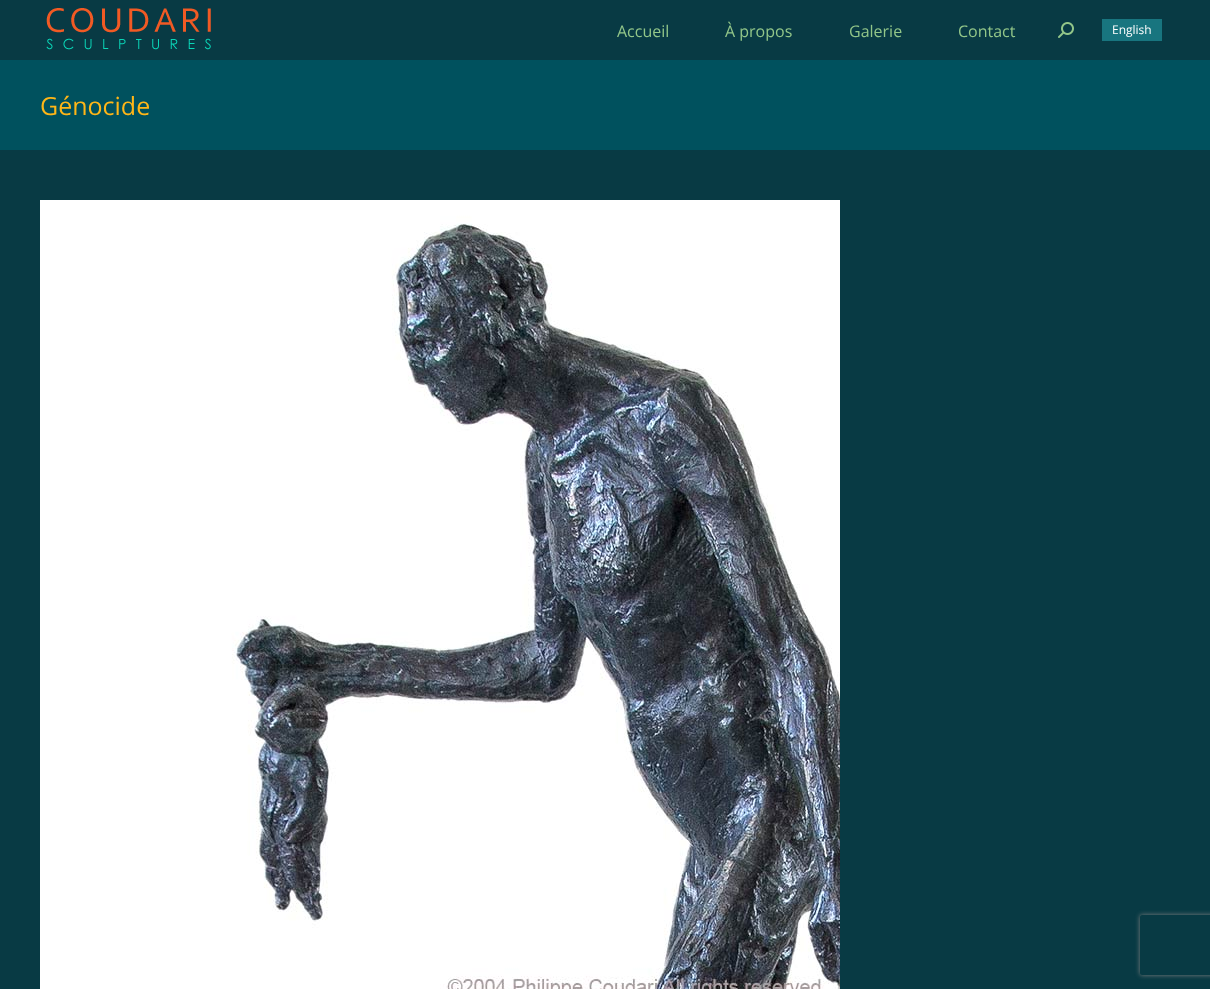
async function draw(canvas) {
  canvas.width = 1210
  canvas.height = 989
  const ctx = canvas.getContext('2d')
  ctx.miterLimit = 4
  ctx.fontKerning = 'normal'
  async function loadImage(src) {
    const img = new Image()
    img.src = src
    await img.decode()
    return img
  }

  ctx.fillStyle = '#083a44'
  ctx.fillRect(0, 0, 1210, 989)
  ctx.drawImage(await loadImage('image0.png'), 46, 8, 165, 42)
  ctx.font = '16px Open Sans'
  ctx.fillStyle = '#92c689'
  ctx.fillText('Accueil', 617, 37)
  ctx.fillText('À propos', 725, 37)
  ctx.fillText('Galerie', 849, 37)
  ctx.fillText('Contact', 958, 37)
  ctx.drawImage(await loadImage('image1.png'), 1058, 22, 16, 16)
  ctx.fillStyle = '#18757f'
  ctx.fillRect(1102, 19, 60, 22)
  ctx.font = '12px Open Sans'
  ctx.fillStyle = '#fff'
  ctx.fillText('English', 1112, 34)
  ctx.fillStyle = '#00515e'
  ctx.fillRect(0, 60, 1210, 90)
  ctx.font = '25px Open Sans'
  ctx.fillStyle = '#ffb617'
  ctx.fillText('Génocide', 40, 115)
  ctx.drawImage(await loadImage('image2.png'), 40, 200, 800, 789)
  ctx.save()
  ctx.beginPath()
  ctx.moveTo(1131, 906)
  ctx.lineTo(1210, 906)
  ctx.lineTo(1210, 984)
  ctx.lineTo(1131, 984)
  ctx.closePath()
  ctx.moveTo(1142, 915)
  ctx.lineTo(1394, 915)
  ctx.bezierCurveTo(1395, 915, 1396, 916, 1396, 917)
  ctx.lineTo(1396, 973)
  ctx.bezierCurveTo(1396, 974, 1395, 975, 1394, 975)
  ctx.lineTo(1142, 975)
  ctx.bezierCurveTo(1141, 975, 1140, 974, 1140, 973)
  ctx.lineTo(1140, 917)
  ctx.bezierCurveTo(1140, 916, 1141, 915, 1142, 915)
  ctx.closePath()
  ctx.clip('evenodd')
  ctx.fillStyle = '#808080'
  ctx.filter = 'blur(2.5px)'
  ctx.beginPath()
  ctx.roundRect(1140, 915, 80, 60, 2)
  ctx.fill()
  ctx.filter = 'none'
  ctx.restore()
}

draw(document.querySelector('canvas'))
